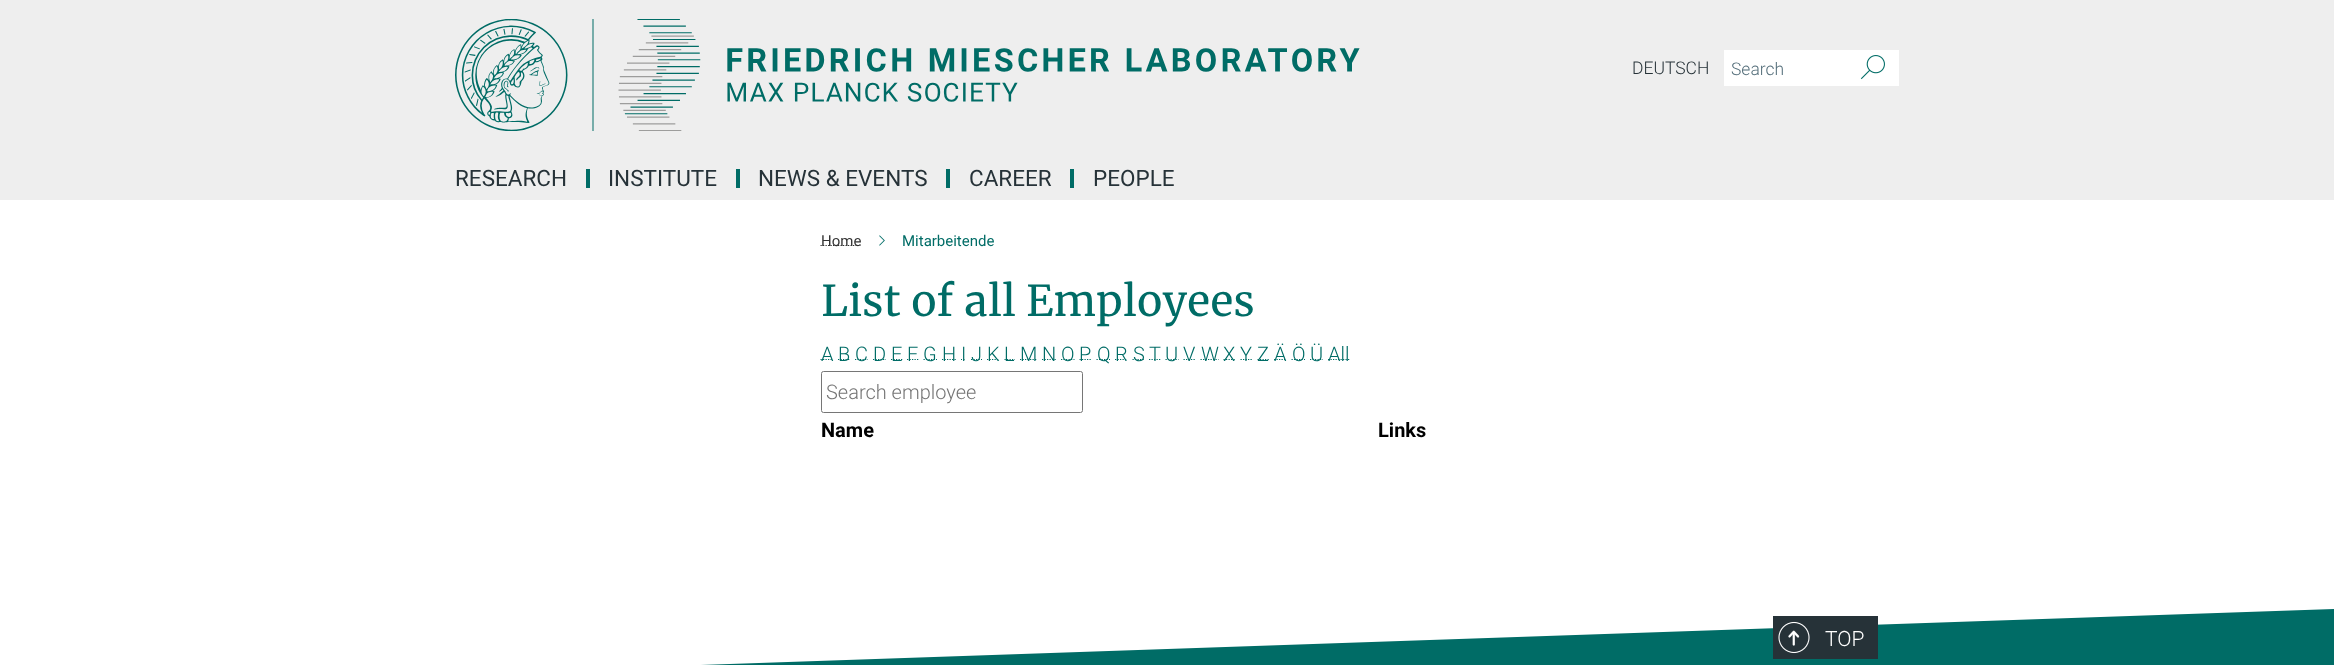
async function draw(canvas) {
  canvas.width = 2334
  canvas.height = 665
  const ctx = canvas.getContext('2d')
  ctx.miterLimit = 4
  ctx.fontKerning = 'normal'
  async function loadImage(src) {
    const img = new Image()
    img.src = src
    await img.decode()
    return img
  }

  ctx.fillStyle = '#fff'
  ctx.fillRect(0, 0, 2334, 665)
  ctx.fillStyle = '#eee'
  ctx.fillRect(0, 0, 2334, 200)
  ctx.drawImage(await loadImage('image0.png'), 455, 19, 905, 112)
  ctx.font = '300 17.5px Roboto'
  ctx.fillStyle = '#263238'
  ctx.fillText('DEUTSCH', 1632, 74)
  ctx.fillStyle = '#fff'
  ctx.fillRect(1724, 50, 175, 36)
  ctx.fillStyle = '#546e7a'
  ctx.fillText('Search', 1731, 75)
  ctx.drawImage(await loadImage('image1.png'), 1860, 55, 25, 25)
  ctx.fillStyle = '#006c66'
  ctx.fillRect(586, 169, 4, 19)
  ctx.font = '22.5px Roboto'
  ctx.fillStyle = '#263238'
  ctx.fillText('RESEARCH', 455, 186)
  ctx.fillStyle = '#006c66'
  ctx.fillRect(736, 169, 4, 19)
  ctx.fillStyle = '#263238'
  ctx.fillText('INSTITUTE', 608, 186)
  ctx.fillStyle = '#006c66'
  ctx.fillRect(946, 169, 4, 19)
  ctx.fillStyle = '#263238'
  ctx.fillText('NEWS & EVENTS', 758, 186)
  ctx.fillStyle = '#006c66'
  ctx.fillRect(1070, 169, 4, 19)
  ctx.fillStyle = '#263238'
  ctx.fillText('CAREER', 969, 186)
  ctx.fillText('PEOPLE', 1093, 186)
  ctx.beginPath()
  ctx.moveTo(820.5, 245.5)
  ctx.lineTo(861, 245.5)
  ctx.strokeStyle = '#333'
  ctx.lineWidth = 1.2
  ctx.setLineDash([1.25, 1.25])
  ctx.stroke()
  ctx.font = '15px Roboto'
  ctx.fillStyle = '#333'
  ctx.fillText('Home', 821, 246)
  ctx.drawImage(await loadImage('image2.png'), 879, 235, 6, 11)
  ctx.fillStyle = '#006c66'
  ctx.fillText('Mitarbeitende', 902, 246)
  ctx.font = '42.5px Merriweather'
  ctx.fillText('List of all Employees', 821, 316)
  ctx.beginPath()
  ctx.moveTo(820.5, 359.5)
  ctx.lineTo(833, 359.5)
  ctx.strokeStyle = '#006c66'
  ctx.stroke()
  ctx.font = '300 20px Roboto'
  ctx.fillText('A', 821, 361)
  ctx.beginPath()
  ctx.moveTo(838, 359.5)
  ctx.lineTo(850.5, 359.5)
  ctx.stroke()
  ctx.fillText('B', 838, 361)
  ctx.beginPath()
  ctx.moveTo(855, 359.5)
  ctx.lineTo(868, 359.5)
  ctx.stroke()
  ctx.fillText('C', 855, 361)
  ctx.beginPath()
  ctx.moveTo(873, 359.5)
  ctx.lineTo(886, 359.5)
  ctx.stroke()
  ctx.fillText('D', 873, 361)
  ctx.beginPath()
  ctx.moveTo(891, 359.5)
  ctx.lineTo(902.5, 359.5)
  ctx.stroke()
  ctx.fillText('E', 891, 361)
  ctx.beginPath()
  ctx.moveTo(907, 359.5)
  ctx.lineTo(918.5, 359.5)
  ctx.stroke()
  ctx.fillText('F', 907, 361)
  ctx.beginPath()
  ctx.moveTo(923.5, 359.5)
  ctx.lineTo(937, 359.5)
  ctx.stroke()
  ctx.fillText('G', 923, 361)
  ctx.beginPath()
  ctx.moveTo(942, 359.5)
  ctx.lineTo(956, 359.5)
  ctx.stroke()
  ctx.fillText('H', 942, 361)
  ctx.beginPath()
  ctx.moveTo(961, 359.5)
  ctx.lineTo(962, 359.5)
  ctx.moveTo(963.5, 359.5)
  ctx.lineTo(964.5, 359.5)
  ctx.moveTo(966, 359.5)
  ctx.lineTo(966, 359.5)
  ctx.setLineDash([])
  ctx.stroke()
  ctx.fillText('I', 961, 361)
  ctx.beginPath()
  ctx.moveTo(971, 359.5)
  ctx.lineTo(982, 359.5)
  ctx.setLineDash([1.25, 1.25])
  ctx.stroke()
  ctx.fillText('J', 971, 361)
  ctx.beginPath()
  ctx.moveTo(987, 359.5)
  ctx.lineTo(999.5, 359.5)
  ctx.stroke()
  ctx.fillText('K', 987, 361)
  ctx.beginPath()
  ctx.moveTo(1004.5, 359.5)
  ctx.lineTo(1015, 359.5)
  ctx.stroke()
  ctx.fillText('L', 1004, 361)
  ctx.beginPath()
  ctx.moveTo(1020, 359.5)
  ctx.lineTo(1037, 359.5)
  ctx.stroke()
  ctx.fillText('M', 1020, 361)
  ctx.beginPath()
  ctx.moveTo(1042, 359.5)
  ctx.lineTo(1056, 359.5)
  ctx.stroke()
  ctx.fillText('N', 1042, 361)
  ctx.beginPath()
  ctx.moveTo(1061, 359.5)
  ctx.lineTo(1074.5, 359.5)
  ctx.stroke()
  ctx.fillText('O', 1061, 361)
  ctx.beginPath()
  ctx.moveTo(1079.5, 359.5)
  ctx.lineTo(1092, 359.5)
  ctx.stroke()
  ctx.fillText('P', 1079, 361)
  ctx.beginPath()
  ctx.moveTo(1096.5, 359.5)
  ctx.lineTo(1110, 359.5)
  ctx.stroke()
  ctx.fillText('Q', 1097, 361)
  ctx.beginPath()
  ctx.moveTo(1115, 359.5)
  ctx.lineTo(1127.5, 359.5)
  ctx.stroke()
  ctx.fillText('R', 1115, 361)
  ctx.beginPath()
  ctx.moveTo(1132.5, 359.5)
  ctx.lineTo(1144.5, 359.5)
  ctx.stroke()
  ctx.fillText('S', 1133, 361)
  ctx.beginPath()
  ctx.moveTo(1149, 359.5)
  ctx.lineTo(1160.5, 359.5)
  ctx.stroke()
  ctx.fillText('T', 1149, 361)
  ctx.beginPath()
  ctx.moveTo(1165.5, 359.5)
  ctx.lineTo(1178.5, 359.5)
  ctx.stroke()
  ctx.fillText('U', 1165, 361)
  ctx.beginPath()
  ctx.moveTo(1183.5, 359.5)
  ctx.lineTo(1195.5, 359.5)
  ctx.stroke()
  ctx.fillText('V', 1183, 361)
  ctx.beginPath()
  ctx.moveTo(1200.5, 359.5)
  ctx.lineTo(1218.5, 359.5)
  ctx.stroke()
  ctx.fillText('W', 1201, 361)
  ctx.beginPath()
  ctx.moveTo(1223.5, 359.5)
  ctx.lineTo(1235.5, 359.5)
  ctx.stroke()
  ctx.fillText('X', 1223, 361)
  ctx.beginPath()
  ctx.moveTo(1240.5, 359.5)
  ctx.lineTo(1252.5, 359.5)
  ctx.stroke()
  ctx.fillText('Y', 1240, 361)
  ctx.beginPath()
  ctx.moveTo(1257.5, 359.5)
  ctx.lineTo(1269.5, 359.5)
  ctx.stroke()
  ctx.fillText('Z', 1257, 361)
  ctx.beginPath()
  ctx.moveTo(1274, 359.5)
  ctx.lineTo(1286.5, 359.5)
  ctx.stroke()
  ctx.fillText('Ä', 1274, 361)
  ctx.beginPath()
  ctx.moveTo(1291.5, 359.5)
  ctx.lineTo(1305, 359.5)
  ctx.stroke()
  ctx.fillText('Ö', 1292, 361)
  ctx.beginPath()
  ctx.moveTo(1310, 359.5)
  ctx.lineTo(1323, 359.5)
  ctx.stroke()
  ctx.fillText('Ü', 1310, 361)
  ctx.beginPath()
  ctx.moveTo(1328, 359.5)
  ctx.lineTo(1349.5, 359.5)
  ctx.stroke()
  ctx.fillText('All', 1328, 361)
  ctx.beginPath()
  ctx.roundRect(821.5, 371.5, 261, 41, 2)
  ctx.strokeStyle = '#767676'
  ctx.lineWidth = 1
  ctx.setLineDash([])
  ctx.stroke()
  ctx.fillStyle = '#757575'
  ctx.fillText('Search employee', 826, 399)
  ctx.font = 'bold 20px Roboto'
  ctx.fillStyle = '#000'
  ctx.fillText('Name', 821, 437)
  ctx.fillText('Links', 1378, 437)
  ctx.fillStyle = '#006c66'
  ctx.beginPath()
  ctx.moveTo(0, 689)
  ctx.lineTo(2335, 609)
  ctx.lineTo(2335, 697)
  ctx.lineTo(0, 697)
  ctx.fill()
  ctx.fillStyle = '#263238'
  ctx.fillRect(1773, 616, 105, 43)
  ctx.drawImage(await loadImage('image3.png'), 1788, 630, 12, 16)
  ctx.drawImage(await loadImage('image4.png'), 1778, 621, 32, 33)
  ctx.font = '300 21px Roboto'
  ctx.fillStyle = '#fff'
  ctx.fillText('TOP', 1825, 646)
}

draw(document.querySelector('canvas'))
